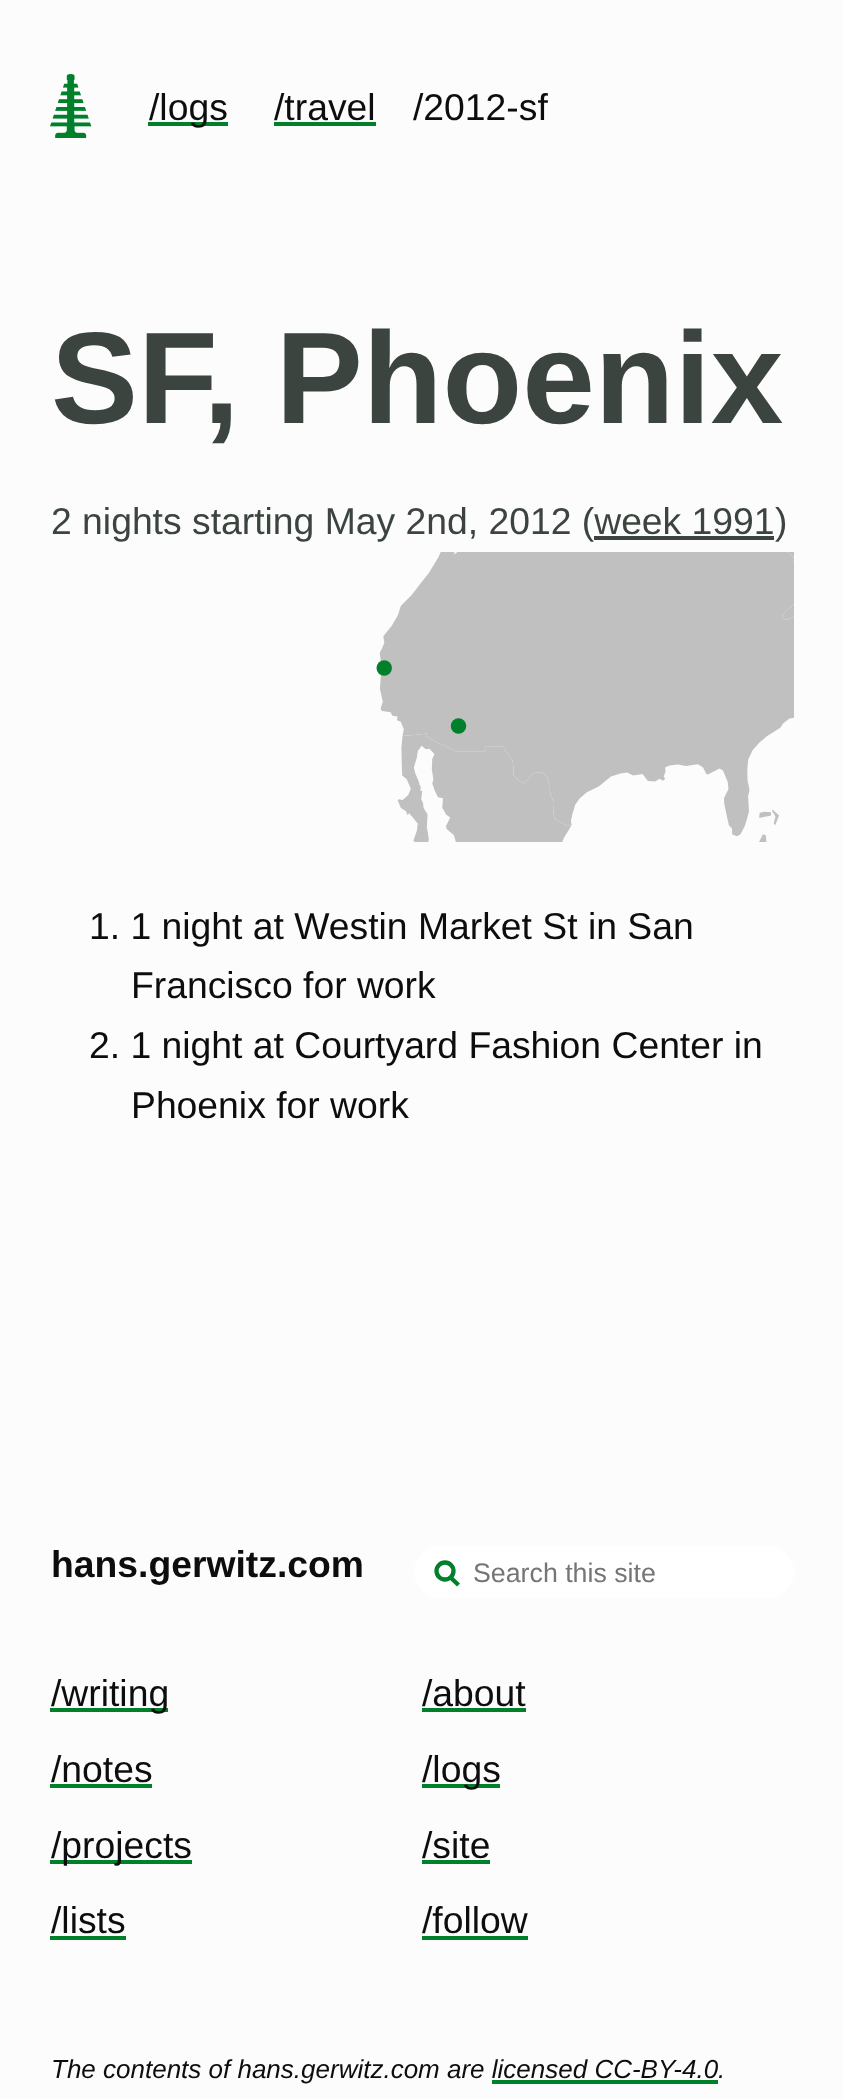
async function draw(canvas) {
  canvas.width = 843
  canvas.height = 2099
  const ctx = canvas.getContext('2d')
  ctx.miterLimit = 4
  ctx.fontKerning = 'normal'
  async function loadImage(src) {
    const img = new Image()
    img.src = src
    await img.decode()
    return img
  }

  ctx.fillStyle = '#fcfcfc'
  ctx.fillRect(0, 0, 843, 2099)
  ctx.drawImage(await loadImage('image0.png'), 50, 74, 42, 64)
  ctx.fillStyle = '#00802b'
  ctx.fillRect(148, 122, 80, 4)
  ctx.font = '37.3px Liberation Sans'
  ctx.fillStyle = '#0d0d0d'
  ctx.fillText('/logs', 149, 120)
  ctx.fillText('/travel', 274, 120)
  ctx.fillStyle = '#00802b'
  ctx.fillRect(274, 122, 102, 4)
  ctx.fillStyle = '#0d0d0d'
  ctx.fillText('/2012-sf', 413, 120)
  ctx.font = 'bold 130.5px Liberation Sans'
  ctx.fillStyle = '#3b443e'
  ctx.fillText('SF, Phoenix', 51, 423)
  ctx.font = '37.3px Liberation Sans'
  ctx.fillText('2 nights starting May 2nd, 2012 (week 1991', 51, 534)
  ctx.fillText(')', 775, 534)
  ctx.fillRect(594, 536, 180, 4)
  ctx.drawImage(await loadImage('image1.png'), 376, 552, 418, 290)
  ctx.fillStyle = '#0d0d0d'
  ctx.fillText('1. 1 night at Westin Market St in San', 89, 939)
  ctx.fillText('Francisco for work', 131, 998)
  ctx.fillText('2. 1 night at Courtyard Fashion Center in', 89, 1058)
  ctx.fillText('Phoenix for work', 131, 1118)
  ctx.font = 'bold 37.3px Liberation Sans'
  ctx.fillText('hans.gerwitz.com', 51, 1577)
  ctx.fillStyle = '#fff'
  ctx.beginPath()
  ctx.roundRect(414, 1546, 380, 52, 26)
  ctx.fill()
  ctx.beginPath()
  ctx.moveTo(458.5, 1585)
  ctx.lineTo(449.5, 1576.5)
  ctx.strokeStyle = '#00802b'
  ctx.lineWidth = 4.3
  ctx.stroke()
  ctx.beginPath()
  ctx.arc(445, 1571, 8.5, 0, 2 * Math.PI)
  ctx.stroke()
  ctx.font = '26.75px Liberation Sans'
  ctx.fillStyle = '#757575'
  ctx.fillText('Search this site', 473, 1582)
  ctx.fillStyle = '#00802b'
  ctx.fillRect(50, 1708, 118, 4)
  ctx.font = '37.3px Liberation Sans'
  ctx.fillStyle = '#0d0d0d'
  ctx.fillText('/writing', 51, 1706)
  ctx.fillText('/notes', 51, 1782)
  ctx.fillStyle = '#00802b'
  ctx.fillRect(50, 1784, 102, 4)
  ctx.fillRect(50, 1860, 142, 4)
  ctx.fillStyle = '#0d0d0d'
  ctx.fillText('/projects', 51, 1858)
  ctx.fillText('/lists', 51, 1933)
  ctx.fillStyle = '#00802b'
  ctx.fillRect(50, 1936, 76, 4)
  ctx.fillStyle = '#0d0d0d'
  ctx.fillText('/about', 422, 1706)
  ctx.fillStyle = '#00802b'
  ctx.fillRect(422, 1708, 104, 4)
  ctx.fillRect(422, 1784, 78, 4)
  ctx.fillStyle = '#0d0d0d'
  ctx.fillText('/logs', 422, 1782)
  ctx.fillText('/site', 422, 1858)
  ctx.fillStyle = '#00802b'
  ctx.fillRect(422, 1860, 68, 4)
  ctx.fillStyle = '#0d0d0d'
  ctx.fillText('/follow', 422, 1933)
  ctx.fillStyle = '#00802b'
  ctx.fillRect(422, 1936, 106, 4)
  ctx.font = 'italic 26px Liberation Sans'
  ctx.fillStyle = '#0d0d0d'
  ctx.fillText('The contents of hans.gerwitz.com are licensed CC-BY-4.0', 51, 2078)
  ctx.fillText('.', 718, 2078)
  ctx.fillStyle = '#00802b'
  ctx.fillRect(492, 2080, 226, 4)
}

draw(document.querySelector('canvas'))
